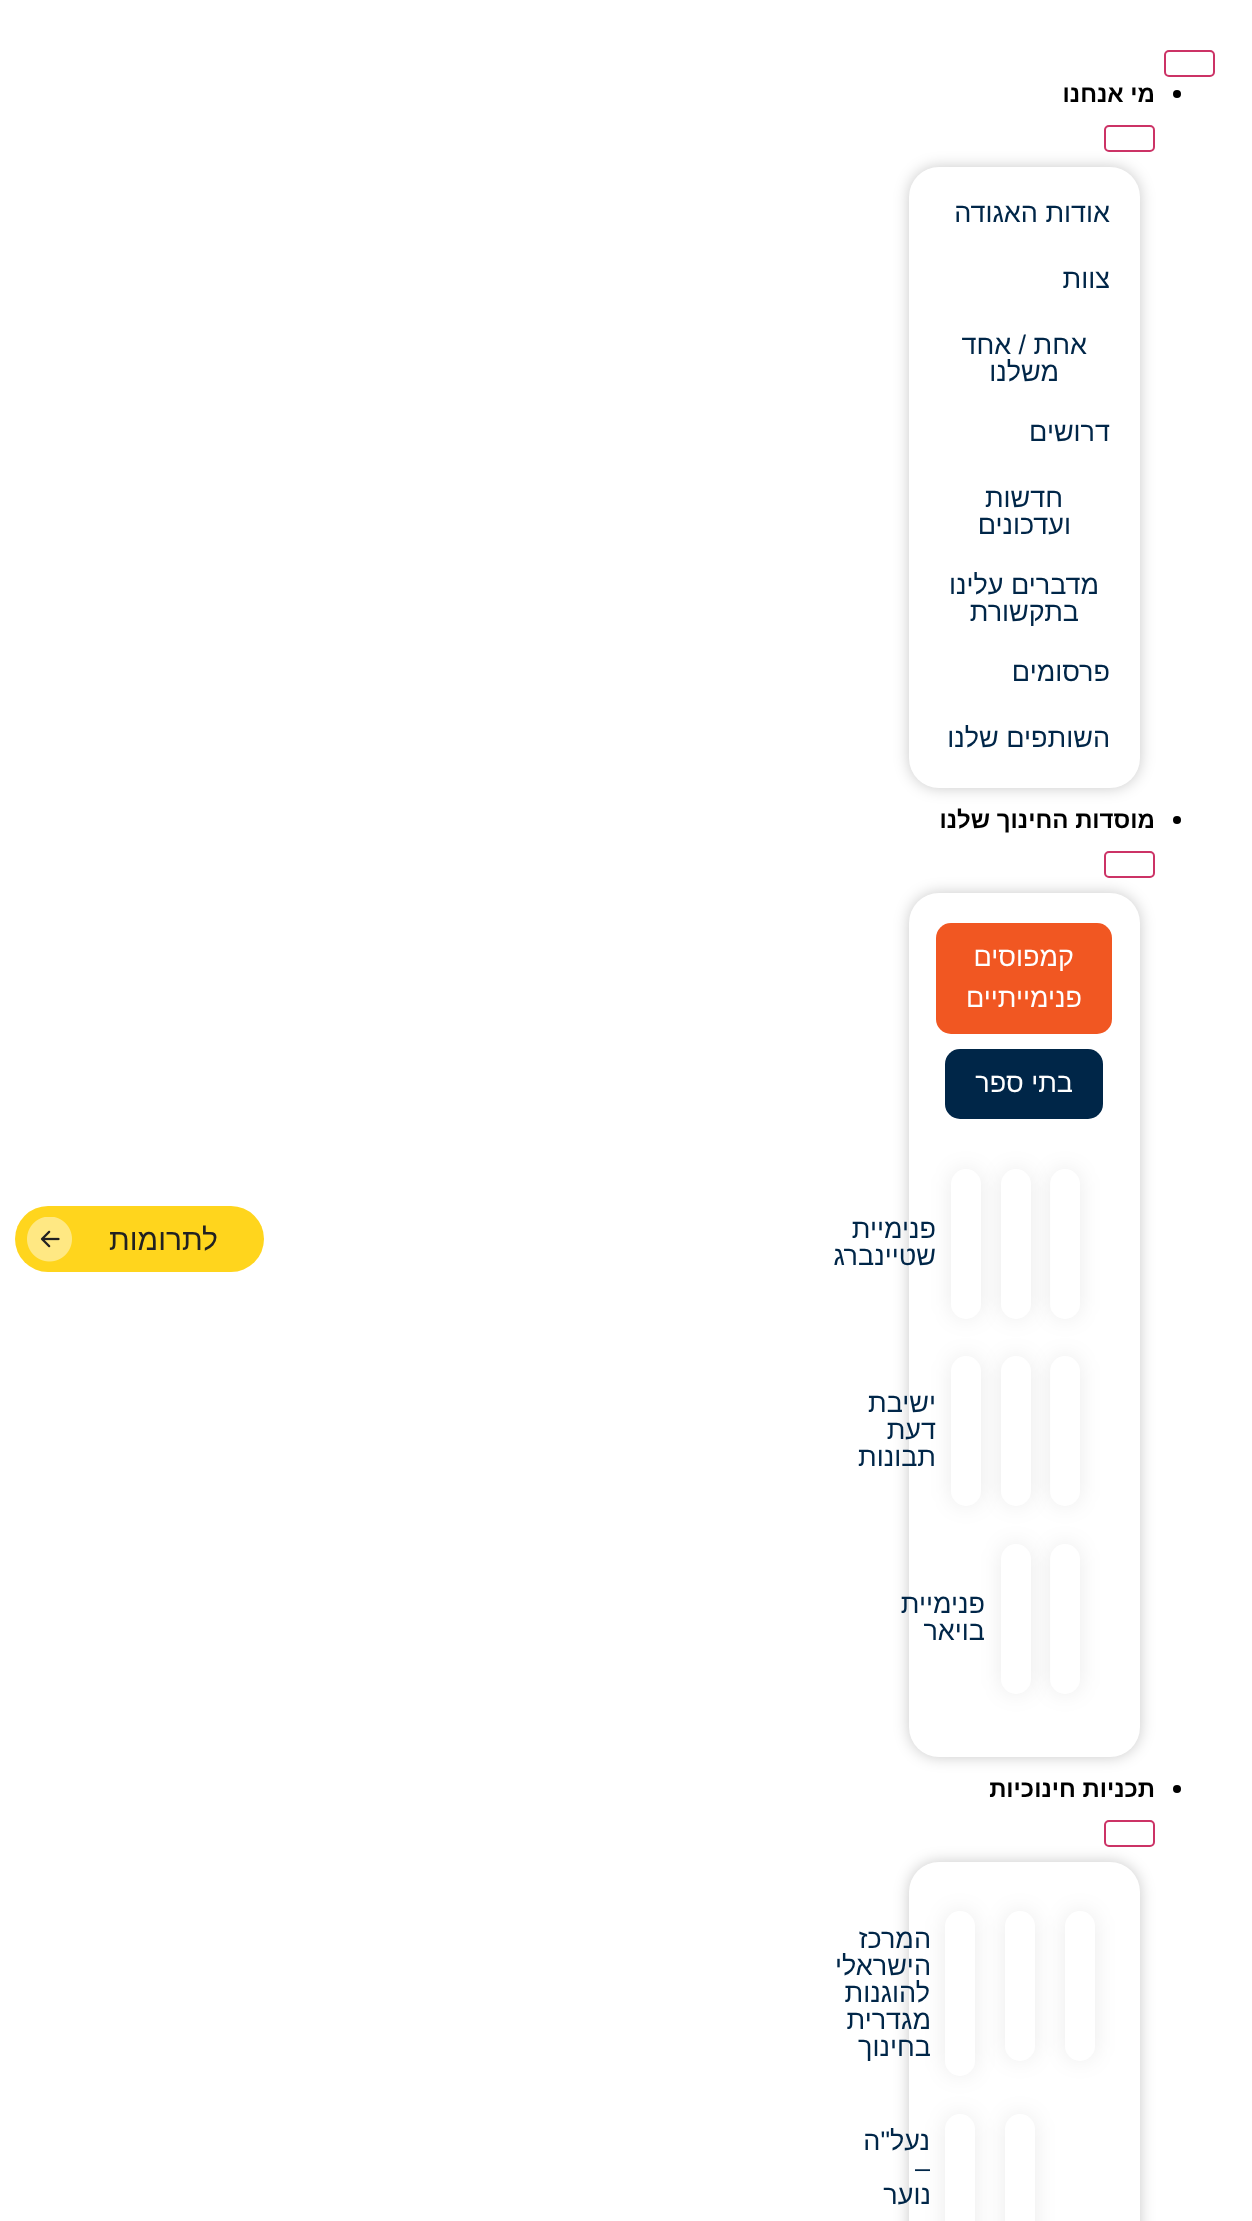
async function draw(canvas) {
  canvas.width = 1252
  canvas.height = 2221
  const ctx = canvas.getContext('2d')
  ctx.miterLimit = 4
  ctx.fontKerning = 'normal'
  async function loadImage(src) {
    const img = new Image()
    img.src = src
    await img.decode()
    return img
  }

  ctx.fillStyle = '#fff'
  ctx.fillRect(0, 0, 1252, 2221)
  ctx.beginPath()
  ctx.roundRect(1165, 51, 49, 25, 4)
  ctx.strokeStyle = '#c36'
  ctx.lineWidth = 2
  ctx.stroke()
  ctx.fillStyle = '#000'
  ctx.beginPath()
  ctx.arc(1177, 94, 4, 0, 2 * Math.PI)
  ctx.fill()
  ctx.direction = 'rtl'
  ctx.font = 'bold 24px Liberation Sans'
  ctx.fillText('מי אנחנו', 1155, 102)
  ctx.beginPath()
  ctx.roundRect(1105, 126, 49, 25, 4)
  ctx.stroke()
  ctx.fillStyle = '#00000036'
  ctx.filter = 'blur(7.5px)'
  ctx.beginPath()
  ctx.roundRect(909, 167, 231, 621, 30)
  ctx.fill()
  ctx.filter = 'none'
  ctx.fillStyle = '#fff'
  ctx.beginPath()
  ctx.roundRect(909, 167, 231, 621, 30)
  ctx.fill()
  ctx.font = '27px Liberation Sans'
  ctx.fillStyle = '#002648'
  ctx.fillText('אודות האגודה', 1110, 222)
  ctx.fillText('צוות', 1110, 288)
  ctx.fillText('אחת / אחד', 1087, 354)
  ctx.fillText('משלנו', 1059, 381)
  ctx.fillText('דרושים', 1110, 441)
  ctx.fillText('חדשות', 1063, 507)
  ctx.fillText('ועדכונים', 1071, 534)
  ctx.fillText('מדברים עלינו', 1099, 594)
  ctx.fillText('בתקשורת', 1079, 621)
  ctx.fillText('פרסומים', 1110, 681)
  ctx.fillText('השותפים שלנו', 1110, 747)
  ctx.fillStyle = '#000'
  ctx.beginPath()
  ctx.arc(1177, 820, 4, 0, 2 * Math.PI)
  ctx.fill()
  ctx.font = 'bold 24px Liberation Sans'
  ctx.fillText('מוסדות החינוך שלנו', 1155, 828)
  ctx.beginPath()
  ctx.roundRect(1105, 852, 49, 25, 4)
  ctx.stroke()
  ctx.fillStyle = '#00000036'
  ctx.filter = 'blur(7.5px)'
  ctx.beginPath()
  ctx.roundRect(909, 893, 231, 864, 30)
  ctx.fill()
  ctx.filter = 'none'
  ctx.fillStyle = '#fff'
  ctx.beginPath()
  ctx.roundRect(909, 893, 231, 864, 30)
  ctx.fill()
  ctx.fillStyle = '#f15722'
  ctx.beginPath()
  ctx.roundRect(936, 923, 176, 111, 15)
  ctx.fill()
  ctx.font = '27px Liberation Sans'
  ctx.fillStyle = '#fff'
  ctx.fillText('קמפוסים', 1074, 966)
  ctx.fillText('פנימייתיים', 1082, 1007)
  ctx.fillStyle = '#002648'
  ctx.beginPath()
  ctx.roundRect(945, 1049, 158, 70, 15)
  ctx.fill()
  ctx.fillStyle = '#fff'
  ctx.fillText('בתי ספר', 1073, 1092)
  ctx.fillStyle = '#00000014'
  ctx.filter = 'blur(11px)'
  ctx.beginPath()
  ctx.roundRect(1050, 1169, 30, 150, 15)
  ctx.fill()
  ctx.filter = 'none'
  ctx.fillStyle = '#fff'
  ctx.beginPath()
  ctx.roundRect(1050, 1169, 30, 150, 15)
  ctx.fill()
  ctx.fillStyle = '#00000014'
  ctx.filter = 'blur(11px)'
  ctx.beginPath()
  ctx.roundRect(1001, 1169, 30, 150, 15)
  ctx.fill()
  ctx.filter = 'none'
  ctx.fillStyle = '#fff'
  ctx.beginPath()
  ctx.roundRect(1001, 1169, 30, 150, 15)
  ctx.fill()
  ctx.fillStyle = '#00000014'
  ctx.filter = 'blur(11px)'
  ctx.beginPath()
  ctx.roundRect(951, 1169, 30, 150, 15)
  ctx.fill()
  ctx.filter = 'none'
  ctx.fillStyle = '#fff'
  ctx.beginPath()
  ctx.roundRect(951, 1169, 30, 150, 15)
  ctx.fill()
  ctx.fillStyle = '#002648'
  ctx.fillText('פנימיית', 936, 1238)
  ctx.fillText('שטיינברג', 936, 1265)
  ctx.fillStyle = '#00000014'
  ctx.filter = 'blur(11px)'
  ctx.beginPath()
  ctx.roundRect(1050, 1356, 30, 150, 15)
  ctx.fill()
  ctx.filter = 'none'
  ctx.fillStyle = '#fff'
  ctx.beginPath()
  ctx.roundRect(1050, 1356, 30, 150, 15)
  ctx.fill()
  ctx.fillStyle = '#00000014'
  ctx.filter = 'blur(11px)'
  ctx.beginPath()
  ctx.roundRect(1001, 1356, 30, 150, 15)
  ctx.fill()
  ctx.filter = 'none'
  ctx.fillStyle = '#fff'
  ctx.beginPath()
  ctx.roundRect(1001, 1356, 30, 150, 15)
  ctx.fill()
  ctx.fillStyle = '#00000014'
  ctx.filter = 'blur(11px)'
  ctx.beginPath()
  ctx.roundRect(951, 1356, 30, 150, 15)
  ctx.fill()
  ctx.filter = 'none'
  ctx.fillStyle = '#fff'
  ctx.beginPath()
  ctx.roundRect(951, 1356, 30, 150, 15)
  ctx.fill()
  ctx.fillStyle = '#002648'
  ctx.fillText('ישיבת', 936, 1412)
  ctx.fillText('דעת', 936, 1439)
  ctx.fillText('תבונות', 936, 1466)
  ctx.fillStyle = '#00000014'
  ctx.filter = 'blur(11px)'
  ctx.beginPath()
  ctx.roundRect(1050, 1544, 30, 150, 15)
  ctx.fill()
  ctx.filter = 'none'
  ctx.fillStyle = '#fff'
  ctx.beginPath()
  ctx.roundRect(1050, 1544, 30, 150, 15)
  ctx.fill()
  ctx.fillStyle = '#00000014'
  ctx.filter = 'blur(11px)'
  ctx.beginPath()
  ctx.roundRect(1001, 1544, 30, 150, 15)
  ctx.fill()
  ctx.filter = 'none'
  ctx.fillStyle = '#fff'
  ctx.beginPath()
  ctx.roundRect(1001, 1544, 30, 150, 15)
  ctx.fill()
  ctx.fillStyle = '#002648'
  ctx.fillText('פנימיית', 985, 1613)
  ctx.fillText('בויאר', 985, 1640)
  ctx.fillStyle = '#000'
  ctx.beginPath()
  ctx.arc(1177, 1789, 4, 0, 2 * Math.PI)
  ctx.fill()
  ctx.font = 'bold 24px Liberation Sans'
  ctx.fillText('תכניות חינוכיות', 1155, 1797)
  ctx.beginPath()
  ctx.roundRect(1105, 1821, 49, 25, 4)
  ctx.stroke()
  ctx.fillStyle = '#00000036'
  ctx.filter = 'blur(7.5px)'
  ctx.beginPath()
  ctx.roundRect(909, 1862, 231, 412, 30)
  ctx.fill()
  ctx.filter = 'none'
  ctx.fillStyle = '#fff'
  ctx.beginPath()
  ctx.roundRect(909, 1862, 231, 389, 30)
  ctx.fill()
  ctx.fillStyle = '#00000014'
  ctx.filter = 'blur(11px)'
  ctx.beginPath()
  ctx.roundRect(1065, 1911, 30, 150, 15)
  ctx.fill()
  ctx.filter = 'none'
  ctx.fillStyle = '#fff'
  ctx.beginPath()
  ctx.roundRect(1065, 1911, 30, 150, 15)
  ctx.fill()
  ctx.fillStyle = '#00000014'
  ctx.filter = 'blur(11px)'
  ctx.beginPath()
  ctx.roundRect(1005, 1911, 30, 150, 15)
  ctx.fill()
  ctx.filter = 'none'
  ctx.fillStyle = '#fff'
  ctx.beginPath()
  ctx.roundRect(1005, 1911, 30, 150, 15)
  ctx.fill()
  ctx.fillStyle = '#00000014'
  ctx.filter = 'blur(11px)'
  ctx.beginPath()
  ctx.roundRect(945, 1911, 30, 165, 15)
  ctx.fill()
  ctx.filter = 'none'
  ctx.fillStyle = '#fff'
  ctx.beginPath()
  ctx.roundRect(945, 1911, 30, 165, 15)
  ctx.fill()
  ctx.font = '27px Liberation Sans'
  ctx.fillStyle = '#002648'
  ctx.fillText('המרכז', 931, 1948)
  ctx.fillText('הישראלי', 931, 1975)
  ctx.fillText('להוגנות', 930, 2002)
  ctx.fillText('מגדרית', 931, 2029)
  ctx.fillText('בחינוך', 931, 2056)
  ctx.fillStyle = '#00000014'
  ctx.filter = 'blur(11px)'
  ctx.beginPath()
  ctx.roundRect(1005, 2114, 30, 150, 15)
  ctx.fill()
  ctx.filter = 'none'
  ctx.fillStyle = '#fff'
  ctx.beginPath()
  ctx.roundRect(1005, 2114, 30, 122, 15)
  ctx.fill()
  ctx.fillStyle = '#00000014'
  ctx.filter = 'blur(11px)'
  ctx.beginPath()
  ctx.roundRect(945, 2114, 30, 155, 15)
  ctx.fill()
  ctx.filter = 'none'
  ctx.fillStyle = '#fff'
  ctx.beginPath()
  ctx.roundRect(945, 2114, 30, 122, 15)
  ctx.fill()
  ctx.fillStyle = '#002648'
  ctx.fillText('נעל"ה', 930, 2150)
  ctx.direction = 'ltr'
  ctx.fillText('–', 915, 2177)
  ctx.direction = 'rtl'
  ctx.fillText('נוער', 931, 2204)
  ctx.fillStyle = '#ffd51d'
  ctx.beginPath()
  ctx.roundRect(15, 1206, 249, 66, 33)
  ctx.fill()
  ctx.font = '30px Liberation Sans'
  ctx.fillStyle = '#212121'
  ctx.fillText('לתרומות', 218, 1250)
  ctx.drawImage(await loadImage('image0.png'), 27, 1217, 45, 45)
}

draw(document.querySelector('canvas'))
